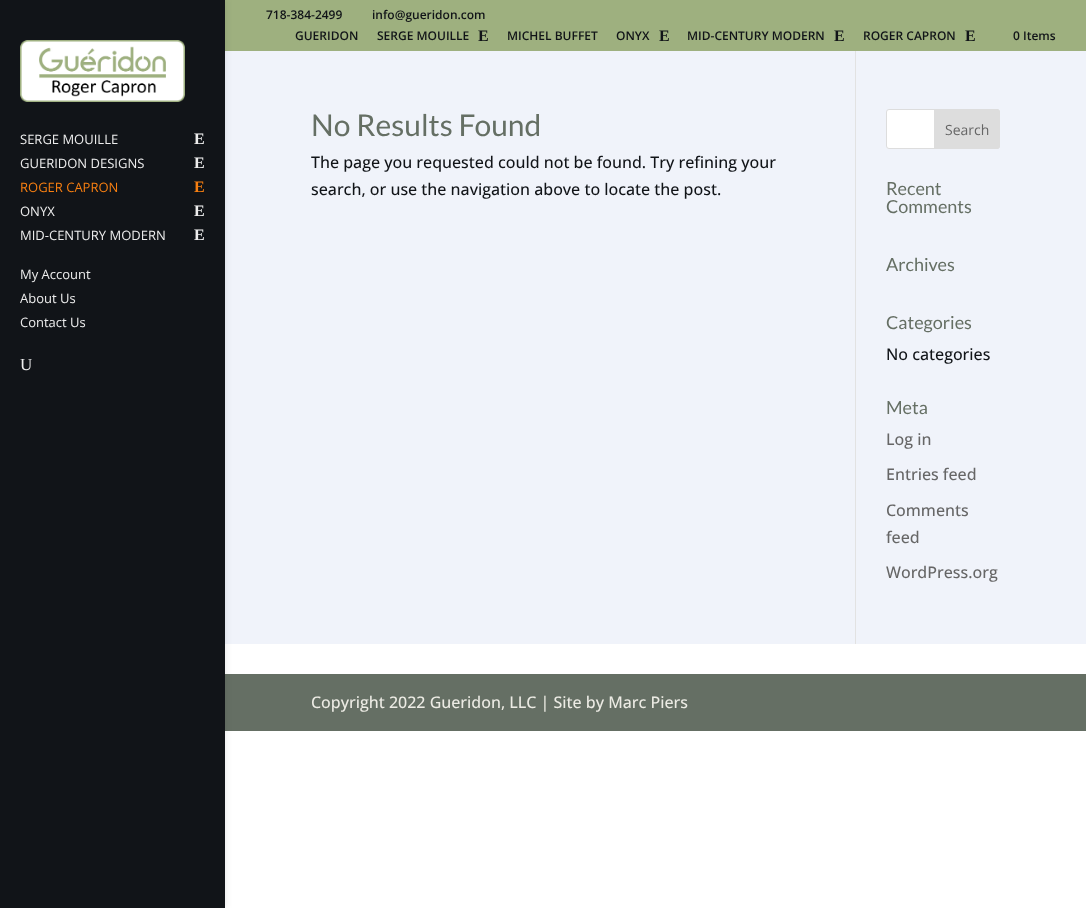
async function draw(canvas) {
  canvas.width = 1086
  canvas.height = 908
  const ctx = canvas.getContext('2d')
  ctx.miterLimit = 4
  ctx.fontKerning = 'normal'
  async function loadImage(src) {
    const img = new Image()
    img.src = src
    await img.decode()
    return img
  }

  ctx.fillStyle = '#fff'
  ctx.fillRect(0, 0, 1086, 908)
  ctx.fillStyle = '#9eb07f'
  ctx.fillRect(225, 0, 861, 51)
  ctx.font = '600 12px Open Sans'
  ctx.fillStyle = '#111418'
  ctx.fillText('718-384-2499', 266, 19)
  ctx.fillText('info@gueridon.com', 372, 19)
  ctx.fillText('GUERIDON', 295, 40)
  ctx.fillText('SERGE MOUILLE', 377, 40)
  ctx.font = 'bold 16px Liberation Serif'
  ctx.fillText('E', 478, 41)
  ctx.font = '600 12px Open Sans'
  ctx.fillText('MICHEL BUFFET', 507, 40)
  ctx.fillText('ONYX', 616, 40)
  ctx.font = 'bold 16px Liberation Serif'
  ctx.fillText('E', 659, 41)
  ctx.font = '600 12px Open Sans'
  ctx.fillText('MID-CENTURY MODERN', 687, 40)
  ctx.font = 'bold 16px Liberation Serif'
  ctx.fillText('E', 834, 41)
  ctx.font = '600 12px Open Sans'
  ctx.fillText('ROGER CAPRON', 863, 40)
  ctx.font = 'bold 16px Liberation Serif'
  ctx.fillText('E', 965, 41)
  ctx.font = '600 12px Open Sans'
  ctx.fillText('0 Items', 1013, 40)
  ctx.fillStyle = '#f0f3fa'
  ctx.fillRect(225, 51, 861, 593)
  ctx.fillStyle = '#656f64'
  ctx.fillRect(225, 674, 861, 57)
  ctx.fillStyle = '#0000001a'
  ctx.filter = 'blur(3.5px)'
  ctx.beginPath()
  ctx.rect(0, 0, 225, 908)
  ctx.fill()
  ctx.filter = 'none'
  ctx.fillStyle = '#111418'
  ctx.fillRect(0, 0, 225, 908)
  ctx.drawImage(await loadImage('image0.png'), 20, 40, 165, 62)
  ctx.font = '13px Open Sans'
  ctx.fillStyle = '#ededed'
  ctx.fillText('SERGE MOUILLE', 20, 144)
  ctx.font = 'bold 16px Liberation Serif'
  ctx.fillText('E', 194, 144)
  ctx.font = '13px Open Sans'
  ctx.fillText('GUERIDON DESIGNS', 20, 168)
  ctx.font = 'bold 16px Liberation Serif'
  ctx.fillText('E', 194, 168)
  ctx.font = '13px Open Sans'
  ctx.fillStyle = '#f77f11'
  ctx.fillText('ROGER CAPRON', 20, 192)
  ctx.font = 'bold 16px Liberation Serif'
  ctx.fillText('E', 194, 192)
  ctx.font = '13px Open Sans'
  ctx.fillStyle = '#ededed'
  ctx.fillText('ONYX', 20, 216)
  ctx.font = 'bold 16px Liberation Serif'
  ctx.fillText('E', 194, 216)
  ctx.font = '13px Open Sans'
  ctx.fillText('MID-CENTURY MODERN', 20, 240)
  ctx.font = 'bold 16px Liberation Serif'
  ctx.fillText('E', 194, 240)
  ctx.font = '13px Open Sans'
  ctx.fillText('My Account', 20, 279)
  ctx.fillText('About Us', 20, 303)
  ctx.fillText('Contact Us', 20, 327)
  ctx.font = '17px Liberation Serif'
  ctx.fillText('U', 20, 370)
  ctx.fillStyle = '#e2e2e2'
  ctx.fillRect(855, 51, 1, 593)
  ctx.font = '30px Lato'
  ctx.fillStyle = '#656f64'
  ctx.fillText('No Results Found', 311, 136)
  ctx.font = '500 16px Open Sans'
  ctx.fillStyle = '#111418'
  ctx.fillText('The page you requested could not be found. Try refining your', 311, 168)
  ctx.fillText('search, or use the navigation above to locate the post.', 311, 195)
  ctx.fillStyle = '#fff'
  ctx.beginPath()
  ctx.roundRect(886.5, 109.5, 113, 39, 2.5)
  ctx.fill()
  ctx.strokeStyle = '#ddd'
  ctx.stroke()
  ctx.fillStyle = '#ddd'
  ctx.beginPath()
  ctx.roundRect(934.5, 109.5, 65, 39, [0, 2.5, 2.5, 0])
  ctx.fill()
  ctx.stroke()
  ctx.font = '14px Open Sans'
  ctx.fillStyle = '#666'
  ctx.fillText('Search', 945, 135)
  ctx.font = '18px Lato'
  ctx.fillStyle = '#656f64'
  ctx.fillText('Recent', 886, 195)
  ctx.fillText('Comments', 886, 213)
  ctx.fillText('Archives', 886, 271)
  ctx.fillText('Categories', 886, 329)
  ctx.font = '500 16px Open Sans'
  ctx.fillStyle = '#111418'
  ctx.fillText('No categories', 886, 360)
  ctx.font = '18px Lato'
  ctx.fillStyle = '#656f64'
  ctx.fillText('Meta', 886, 414)
  ctx.font = '500 16px Open Sans'
  ctx.fillStyle = '#666'
  ctx.fillText('Log in', 886, 445)
  ctx.fillText('Entries feed', 886, 480)
  ctx.fillText('Comments', 886, 516)
  ctx.fillText('feed', 886, 543)
  ctx.fillText('WordPress.org', 886, 578)
  ctx.fillStyle = '#ecebe4'
  ctx.fillText('Copyright 2022 Gueridon, LLC | Site by Marc Piers', 311, 708)
}

draw(document.querySelector('canvas'))
